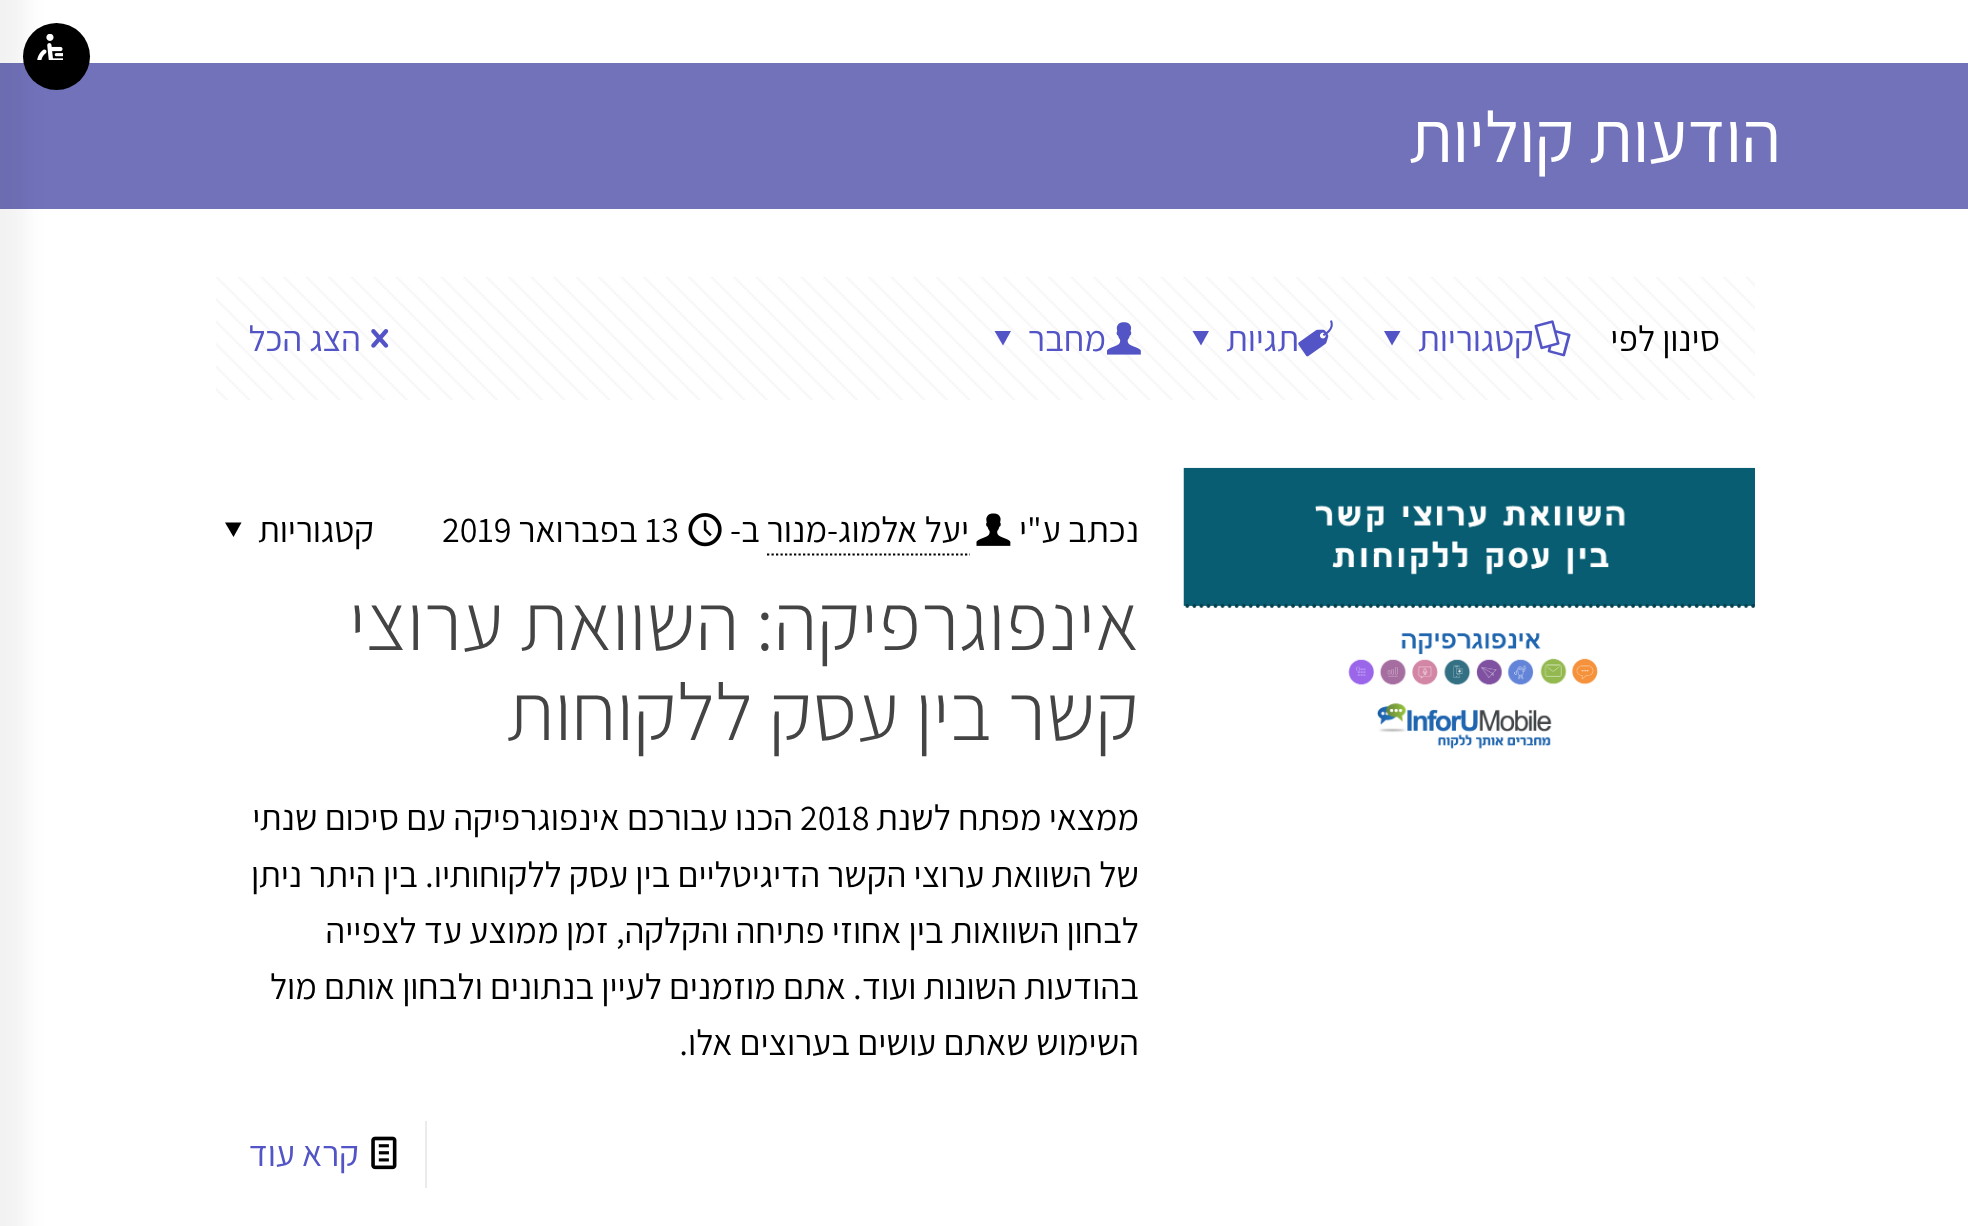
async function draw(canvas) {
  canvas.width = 1968
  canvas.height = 1226
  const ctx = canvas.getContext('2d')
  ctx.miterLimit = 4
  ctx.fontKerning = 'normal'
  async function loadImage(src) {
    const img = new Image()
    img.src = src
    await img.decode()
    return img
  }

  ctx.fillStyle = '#fff'
  ctx.fillRect(0, 0, 1968, 1226)
  ctx.fillStyle = '#7272bb'
  ctx.fillRect(0, 63, 1968, 146)
  ctx.fillStyle = '#000'
  ctx.beginPath()
  ctx.arc(56.5, 56.5, 33.5, 0, 2 * Math.PI)
  ctx.fill()
  ctx.drawImage(await loadImage('image0.png'), 37, 34, 26, 26)
  ctx.fillStyle = '#0000000d'
  ctx.filter = 'blur(11px)'
  ctx.beginPath()
  ctx.rect(-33, -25, 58, 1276)
  ctx.fill()
  ctx.filter = 'none'
  ctx.direction = 'rtl'
  ctx.font = '200 72px Assistant'
  ctx.fillStyle = '#fff'
  ctx.fillText('הודעות קוליות', 1781, 162)
  ctx.drawImage(await loadImage('image1.png'), 216, 277, 1539, 123)
  ctx.font = '200 36px Assistant'
  ctx.fillStyle = '#000'
  ctx.fillText('סינון לפי', 1720, 351)
  ctx.drawImage(await loadImage('image2.png'), 1534, 320, 37, 37)
  ctx.fillStyle = '#5354c5'
  ctx.fillText('קטגוריות', 1534, 351)
  ctx.beginPath()
  ctx.moveTo(1400.5, 331)
  ctx.lineTo(1392, 345.5)
  ctx.lineTo(1384, 331)
  ctx.closePath()
  ctx.fill()
  ctx.drawImage(await loadImage('image3.png'), 1298, 320, 35, 37)
  ctx.fillText('תגיות', 1299, 351)
  ctx.beginPath()
  ctx.moveTo(1209, 331)
  ctx.lineTo(1201, 345.5)
  ctx.lineTo(1192.5, 331)
  ctx.closePath()
  ctx.fill()
  ctx.drawImage(await loadImage('image4.png'), 1107, 322, 34, 33)
  ctx.fillText('מחבר', 1106, 351)
  ctx.beginPath()
  ctx.moveTo(1011, 331)
  ctx.lineTo(1003, 345.5)
  ctx.lineTo(994.5, 331)
  ctx.closePath()
  ctx.fill()
  ctx.drawImage(await loadImage('image5.png'), 371, 329, 18, 19)
  ctx.fillText('הצג הכל', 361, 351)
  ctx.drawImage(await loadImage('image6.png'), 1183, 467, 572, 282)
  ctx.beginPath()
  ctx.moveTo(1394, 624.5)
  ctx.lineTo(1409.5, 608.5)
  ctx.strokeStyle = '#fff'
  ctx.lineWidth = 4.2
  ctx.stroke()
  ctx.fillStyle = '#000'
  ctx.fillText('נכתב ע"י', 1139, 542)
  ctx.drawImage(await loadImage('image7.png'), 976, 513, 35, 33)
  ctx.fillText('יעל אלמוג-מנור', 969, 542)
  ctx.beginPath()
  ctx.moveTo(767, 554.5)
  ctx.lineTo(970, 554.5)
  ctx.strokeStyle = '#000'
  ctx.lineWidth = 2.2
  ctx.setLineDash([2.25, 2.25])
  ctx.stroke()
  ctx.fillText('ב-', 760, 542)
  ctx.drawImage(await loadImage('image8.png'), 688, 513, 34, 34)
  ctx.direction = 'ltr'
  ctx.fillText('13', 645, 542)
  ctx.direction = 'rtl'
  ctx.fillText('בפברואר', 638, 542)
  ctx.direction = 'ltr'
  ctx.fillText('2019', 442, 542)
  ctx.direction = 'rtl'
  ctx.fillText('קטגוריות', 374, 542)
  ctx.beginPath()
  ctx.moveTo(241.5, 522.5)
  ctx.lineTo(233.5, 537)
  ctx.lineTo(225, 522.5)
  ctx.closePath()
  ctx.fill()
  ctx.font = '300 81px Assistant'
  ctx.fillStyle = '#444'
  ctx.fillText('אינפוגרפיקה: השוואת ערוצי', 1139, 650)
  ctx.fillText('קשר בין עסק ללקוחות', 1139, 740)
  ctx.font = '200 36px Assistant'
  ctx.fillStyle = '#000'
  ctx.fillText('ממצאי מפתח לשנת', 1139, 830)
  ctx.direction = 'ltr'
  ctx.fillText('2018', 800, 830)
  ctx.direction = 'rtl'
  ctx.fillText('הכנו עבורכם אינפוגרפיקה עם סיכום שנתי', 793, 830)
  ctx.fillText('של השוואת ערוצי הקשר הדיגיטליים בין עסק ללקוחותיו.', 1139, 887)
  ctx.fillText('בין היתר ניתן', 418, 887)
  ctx.fillText('לבחון השוואות בין אחוזי פתיחה והקלקה, זמן ממוצע עד לצפייה', 1139, 943)
  ctx.fillText('בהודעות השונות ועוד. אתם מוזמנים לעיין בנתונים ולבחון אותם מול', 1139, 999)
  ctx.fillText('השימוש שאתם עושים בערוצים אלו.', 1139, 1055)
  ctx.fillStyle = '#ebebeb'
  ctx.fillRect(425, 1121, 2, 67)
  ctx.drawImage(await loadImage('image9.png'), 371, 1136, 26, 34)
  ctx.fillStyle = '#5354c5'
  ctx.fillText('קרא עוד', 359, 1166)
}

draw(document.querySelector('canvas'))
